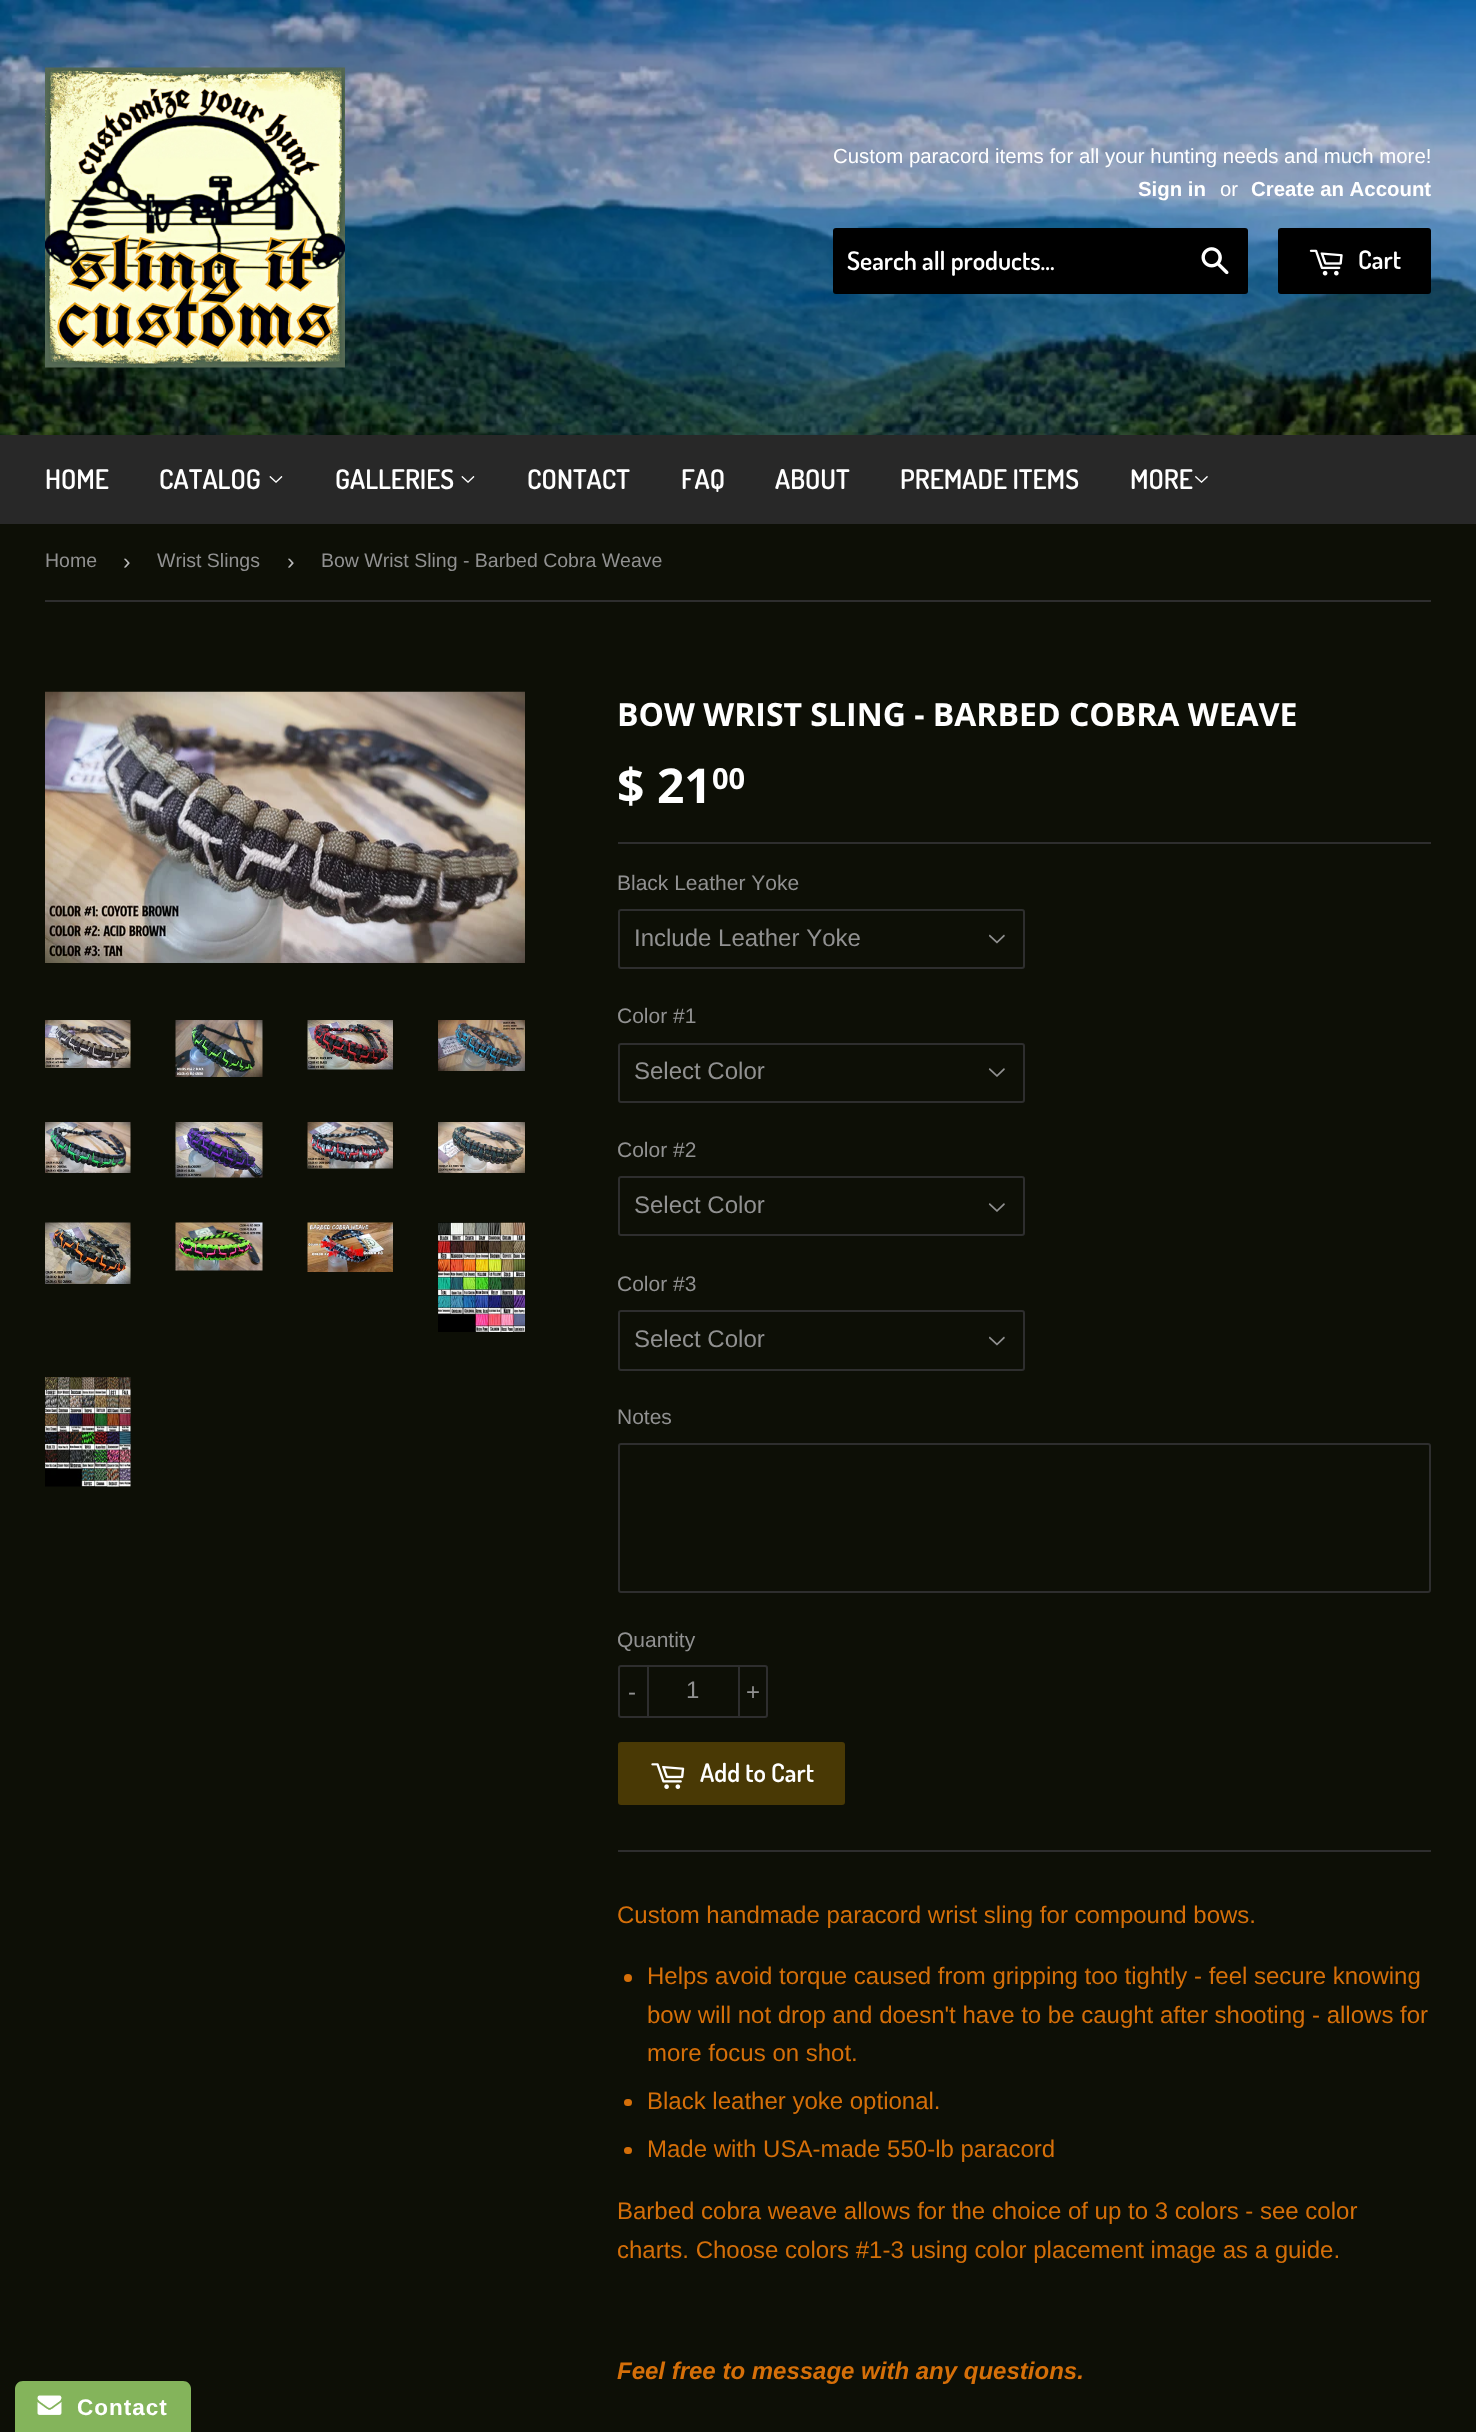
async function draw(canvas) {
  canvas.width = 1476
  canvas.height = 2432
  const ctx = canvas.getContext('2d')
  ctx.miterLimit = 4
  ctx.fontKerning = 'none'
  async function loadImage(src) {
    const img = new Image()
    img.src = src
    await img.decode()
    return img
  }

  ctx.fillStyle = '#0d0f06'
  ctx.fillRect(0, 0, 1476, 2432)
  ctx.drawImage(await loadImage('image0.png'), 0, 0, 1476, 435)
  ctx.drawImage(await loadImage('image1.png'), 45, 67, 300, 301)
  ctx.font = '20.4px Liberation Sans'
  ctx.fillStyle = '#fff'
  ctx.fillText('Custom paracord items for all your hunting needs and much more!', 833, 163)
  ctx.font = 'bold 20.4px Liberation Sans'
  ctx.fillText('Sign in', 1138, 196)
  ctx.font = '20.4px Liberation Sans'
  ctx.fillText('or', 1220, 196)
  ctx.font = 'bold 20.4px Liberation Sans'
  ctx.fillText('Create an Account', 1251, 196)
  ctx.fillStyle = '#000'
  ctx.beginPath()
  ctx.roundRect(833, 228, 415, 66, 3)
  ctx.fill()
  ctx.font = '600 25.5px Dosis'
  ctx.fillStyle = '#fff'
  ctx.fillText('Search all products...', 847, 270)
  ctx.drawImage(await loadImage('image2.png'), 1201, 247, 28, 28)
  ctx.fillStyle = '#000'
  ctx.beginPath()
  ctx.roundRect(1278, 228, 153, 66, 3)
  ctx.fill()
  ctx.drawImage(await loadImage('image3.png'), 1309, 249, 34, 27)
  ctx.fillStyle = '#fff'
  ctx.fillText('Cart', 1358, 269)
  ctx.fillStyle = '#282828'
  ctx.fillRect(0, 435, 1476, 89)
  ctx.font = '600 27px Dosis'
  ctx.fillStyle = '#fff'
  ctx.fillText('HOME', 45, 489)
  ctx.fillText('CATALOG', 159, 489)
  ctx.drawImage(await loadImage('image4.png'), 269, 476, 14, 7)
  ctx.fillText('GALLERIES', 335, 489)
  ctx.drawImage(await loadImage('image4.png'), 461, 476, 14, 7)
  ctx.fillText('CONTACT', 527, 489)
  ctx.fillText('FAQ', 681, 489)
  ctx.fillText('ABOUT', 775, 489)
  ctx.fillText('PREMADE ITEMS', 900, 489)
  ctx.fillText('MORE', 1130, 489)
  ctx.drawImage(await loadImage('image5.png'), 1195, 476, 13, 7)
  ctx.fillStyle = '#2e2e2e'
  ctx.fillRect(45, 600, 1386, 2)
  ctx.font = '19.5px Liberation Sans'
  ctx.fillStyle = '#919191'
  ctx.fillText('Home', 45, 567)
  ctx.font = '22.5px Liberation Sans'
  ctx.fillStyle = '#bbb'
  ctx.fillText('›', 123, 569)
  ctx.font = '19.5px Liberation Sans'
  ctx.fillStyle = '#919191'
  ctx.fillText('Wrist Slings', 157, 567)
  ctx.font = '22.5px Liberation Sans'
  ctx.fillStyle = '#bbb'
  ctx.fillText('›', 287, 569)
  ctx.font = '19.5px Liberation Sans'
  ctx.fillStyle = '#919191'
  ctx.fillText('Bow Wrist Sling - Barbed Cobra Weave', 321, 567)
  ctx.drawImage(await loadImage('image6.png'), 45, 691, 480, 272)
  ctx.drawImage(await loadImage('image7.png'), 45, 1020, 86, 48)
  ctx.drawImage(await loadImage('image8.png'), 175, 1020, 88, 57)
  ctx.drawImage(await loadImage('image9.png'), 307, 1020, 86, 50)
  ctx.drawImage(await loadImage('image10.png'), 438, 1020, 87, 51)
  ctx.drawImage(await loadImage('image11.png'), 45, 1122, 86, 51)
  ctx.drawImage(await loadImage('image12.png'), 175, 1122, 88, 56)
  ctx.drawImage(await loadImage('image13.png'), 307, 1122, 86, 47)
  ctx.drawImage(await loadImage('image14.png'), 438, 1122, 87, 51)
  ctx.drawImage(await loadImage('image15.png'), 45, 1222, 86, 62)
  ctx.drawImage(await loadImage('image16.png'), 175, 1222, 88, 49)
  ctx.drawImage(await loadImage('image17.png'), 307, 1222, 86, 50)
  ctx.drawImage(await loadImage('image18.png'), 438, 1222, 87, 110)
  ctx.drawImage(await loadImage('image19.png'), 45, 1377, 86, 110)
  ctx.font = 'bold 32px Open Sans'
  ctx.fillStyle = '#fff'
  ctx.fillText('BOW WRIST SLING - BARBED COBRA WEAVE', 617, 726)
  ctx.font = 'bold 48px Open Sans'
  ctx.fillText('$ 21', 617, 803)
  ctx.font = 'bold 29px Open Sans'
  ctx.fillText('00', 712, 789)
  ctx.fillStyle = '#2e2e2e'
  ctx.fillRect(618, 842, 813, 2)
  ctx.font = '21px Liberation Sans'
  ctx.fillStyle = '#919191'
  ctx.fillText('Black Leather Yoke', 617, 890)
  ctx.drawImage(await loadImage('image20.png'), 989, 934, 16, 10)
  ctx.beginPath()
  ctx.roundRect(619, 910, 405, 58, 2)
  ctx.strokeStyle = '#2e2e2e'
  ctx.lineWidth = 2
  ctx.stroke()
  ctx.font = '24px Liberation Sans'
  ctx.fillText('Include Leather Yoke', 634, 946)
  ctx.font = '21px Liberation Sans'
  ctx.fillText('Color #1', 617, 1023)
  ctx.drawImage(await loadImage('image21.png'), 988, 1068, 17, 9)
  ctx.beginPath()
  ctx.roundRect(619, 1044, 405, 58, 2)
  ctx.stroke()
  ctx.font = '24px Liberation Sans'
  ctx.fillText('Select Color', 634, 1079)
  ctx.font = '21px Liberation Sans'
  ctx.fillText('Color #2', 617, 1157)
  ctx.drawImage(await loadImage('image21.png'), 988, 1203, 17, 9)
  ctx.beginPath()
  ctx.roundRect(619, 1177, 405, 58, 2)
  ctx.stroke()
  ctx.font = '24px Liberation Sans'
  ctx.fillText('Select Color', 634, 1213)
  ctx.font = '21px Liberation Sans'
  ctx.fillText('Color #3', 617, 1291)
  ctx.drawImage(await loadImage('image20.png'), 989, 1336, 16, 10)
  ctx.beginPath()
  ctx.roundRect(619, 1311, 405, 59, 2)
  ctx.stroke()
  ctx.font = '24px Liberation Sans'
  ctx.fillText('Select Color', 634, 1347)
  ctx.font = '21px Liberation Sans'
  ctx.fillText('Notes', 617, 1424)
  ctx.beginPath()
  ctx.roundRect(619, 1444, 811, 148, 2)
  ctx.stroke()
  ctx.fillText('Quantity', 617, 1647)
  ctx.beginPath()
  ctx.roundRect(619, 1666, 148, 51, 2)
  ctx.stroke()
  ctx.fillStyle = '#2e2e2e'
  ctx.fillRect(647, 1665, 2, 53)
  ctx.font = '24px Liberation Sans'
  ctx.fillStyle = '#919191'
  ctx.fillText('-', 628, 1700)
  ctx.fillText('1', 686, 1698)
  ctx.fillStyle = '#2e2e2e'
  ctx.fillRect(738, 1665, 2, 53)
  ctx.fillStyle = '#919191'
  ctx.fillText('+', 746, 1700)
  ctx.fillStyle = '#493905'
  ctx.beginPath()
  ctx.roundRect(618, 1742, 227, 63, 3)
  ctx.fill()
  ctx.drawImage(await loadImage('image22.png'), 651, 1763, 34, 26)
  ctx.font = '600 25.5px Dosis'
  ctx.fillStyle = '#fff'
  ctx.fillText('Add to Cart', 700, 1782)
  ctx.fillStyle = '#2e2e2e'
  ctx.fillRect(618, 1850, 813, 2)
  ctx.font = '24px Liberation Sans'
  ctx.fillStyle = '#d56f09'
  ctx.fillText('Custom handmade paracord wrist sling for compound bows.', 617, 1923)
  ctx.beginPath()
  ctx.arc(628, 1978, 4, 0, 2 * Math.PI)
  ctx.fill()
  ctx.fillText('Helps avoid torque caused from gripping too tightly - feel secure knowing', 647, 1984)
  ctx.fillText('bow will not drop and doesn\'t have to be caught after shooting - allows for', 647, 2023)
  ctx.fillText('more focus on shot.', 647, 2061)
  ctx.beginPath()
  ctx.roundRect(624, 2099, 8, 7, 3.5)
  ctx.fill()
  ctx.fillText('Black leather yoke optional.', 647, 2109)
  ctx.beginPath()
  ctx.roundRect(624, 2147, 8, 7, 3.5)
  ctx.fill()
  ctx.fillText('Made with USA-made 550-lb paracord', 647, 2157)
  ctx.fillText('Barbed cobra weave allows for the choice of up to 3 colors - see color', 617, 2219)
  ctx.fillText('charts. Choose colors #1-3 using color placement image as a guide.', 617, 2258)
  ctx.font = 'italic bold 24px Liberation Sans'
  ctx.fillText('Feel free to message with any questions.', 617, 2379)
  ctx.fillStyle = '#84b45b'
  ctx.beginPath()
  ctx.moveTo(23, 2381)
  ctx.lineTo(183, 2381)
  ctx.bezierCurveTo(187.5, 2381, 191, 2384.5, 191, 2389)
  ctx.lineTo(191, 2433)
  ctx.lineTo(15, 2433)
  ctx.lineTo(15, 2389)
  ctx.bezierCurveTo(15, 2384.5, 18.5, 2381, 23, 2381)
  ctx.closePath()
  ctx.fill()
  ctx.drawImage(await loadImage('image23.png'), 37, 2395, 25, 20)
  ctx.letterSpacing = '1px'
  ctx.font = 'bold 22.5px Liberation Sans'
  ctx.fillStyle = '#fff'
  ctx.fillText('Contact', 77, 2415)
}

draw(document.querySelector('canvas'))
